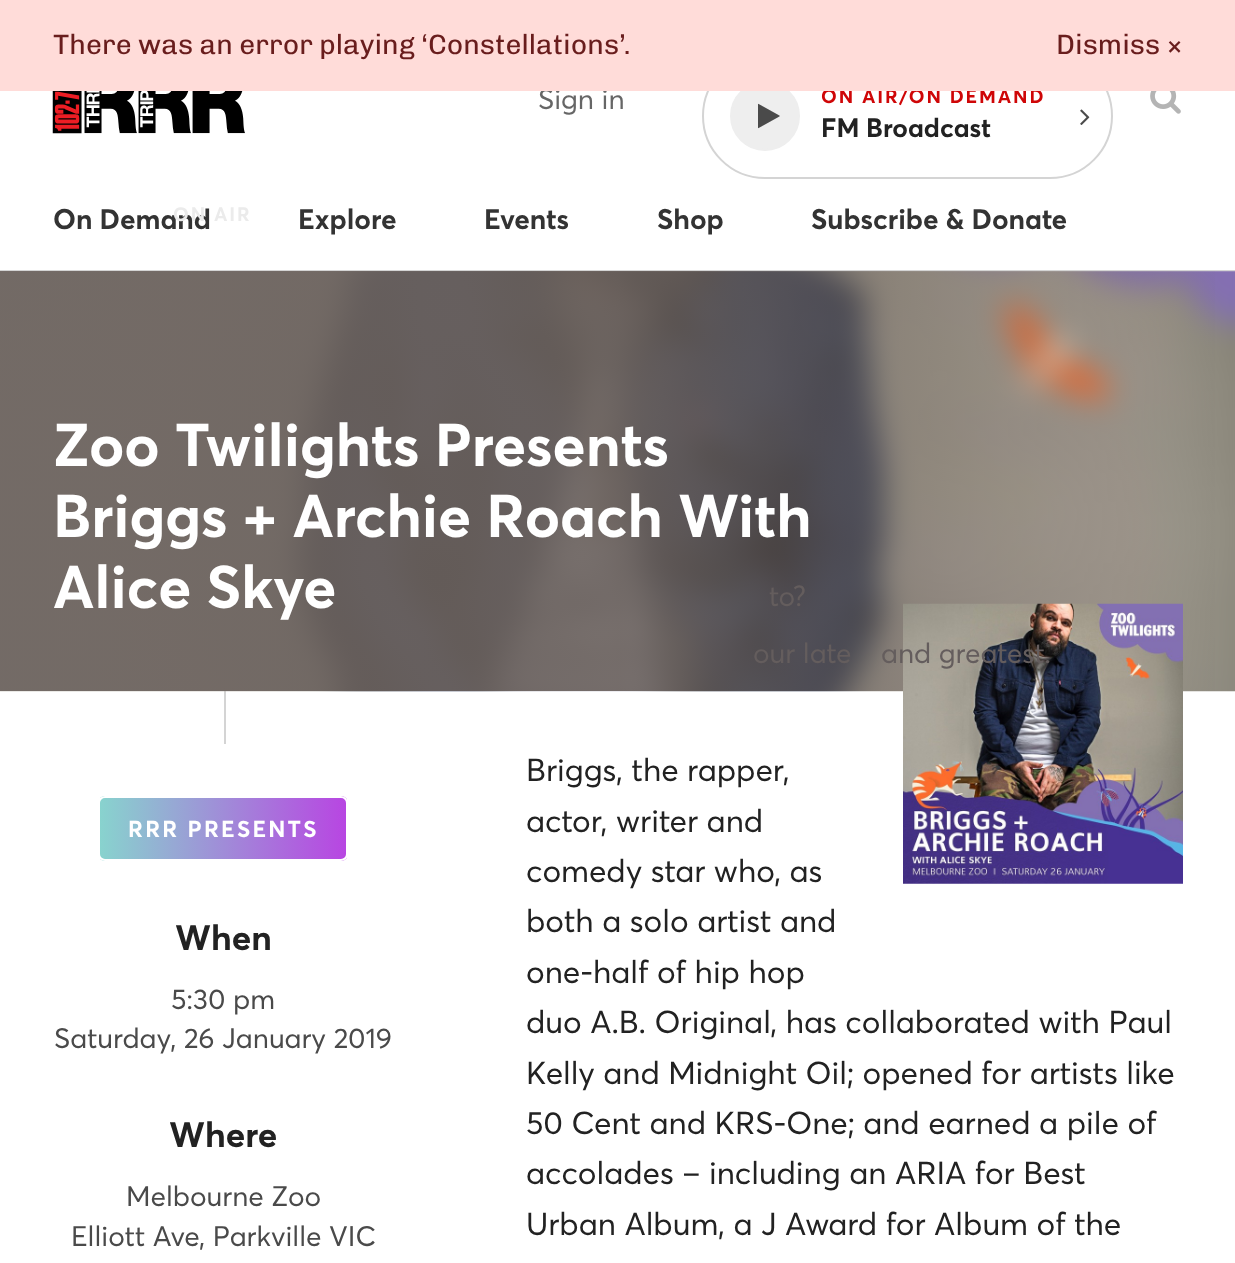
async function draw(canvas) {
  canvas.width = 1235
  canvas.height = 1263
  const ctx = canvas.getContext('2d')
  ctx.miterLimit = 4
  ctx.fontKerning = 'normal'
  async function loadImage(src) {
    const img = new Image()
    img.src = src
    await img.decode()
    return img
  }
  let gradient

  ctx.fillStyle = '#fff'
  ctx.fillRect(0, 0, 1235, 1263)
  ctx.font = '28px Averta'
  ctx.fillStyle = '#666'
  ctx.fillText('Sign in', 538, 109)
  ctx.beginPath()
  ctx.roundRect(703, 54, 409, 124, 62)
  ctx.strokeStyle = '#d4d4d4'
  ctx.lineWidth = 2
  ctx.stroke()
  ctx.fillStyle = '#eee'
  ctx.beginPath()
  ctx.arc(765, 116, 34, 0, 2 * Math.PI)
  ctx.fill()
  ctx.strokeStyle = '#eee'
  ctx.stroke()
  ctx.letterSpacing = '1.9px'
  ctx.font = 'bold 19.25px Averta'
  ctx.fillStyle = '#cf0607'
  ctx.fillText('ON AIR/ON DEMAND', 821, 103)
  ctx.fillStyle = '#ffdcd9'
  ctx.fillRect(0, 0, 1235, 91)
  ctx.letterSpacing = '0px'
  ctx.font = '28px Chivo'
  ctx.fillStyle = '#691d1d'
  ctx.fillText('There was an error playing ‘Constellations’.', 53, 54)
  ctx.fillText('Dismiss', 1056, 54)
  ctx.fillText('×', 1166, 54)
  ctx.fillStyle = '#d4d4d4'
  ctx.fillRect(0, 270, 1235, 2)
  ctx.drawImage(await loadImage('image0.png'), 52, 91, 193, 43)
  ctx.drawImage(await loadImage('image1.png'), 758, 103, 22, 26)
  ctx.font = 'bold 26.25px Averta'
  ctx.fillStyle = '#222'
  ctx.fillText('FM Broadcast', 821, 137)
  ctx.drawImage(await loadImage('image2.png'), 1080, 109, 10, 16)
  ctx.drawImage(await loadImage('image3.png'), 1150, 91, 31, 23)
  ctx.font = 'bold 28px Averta'
  ctx.fillStyle = '#333'
  ctx.fillText('On Demand', 53, 229)
  ctx.fillText('Explore', 298, 229)
  ctx.fillText('Events', 484, 229)
  ctx.fillText('Shop', 657, 229)
  ctx.fillText('Subscribe & Donate', 811, 229)
  ctx.fillStyle = '#d4d4d4'
  ctx.fillRect(224, 691, 2, 53)
  ctx.drawImage(await loadImage('image4.png'), 0, 271, 1235, 421)
  gradient = ctx.createLinearGradient(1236, 481, 0, 481)
  gradient.addColorStop(0, '#6d646000')
  gradient.addColorStop(0.4, '#6d6460b3')
  gradient.addColorStop(0.5, '#6d6460e6')
  ctx.fillStyle = gradient
  ctx.fillRect(0, 271, 1215, 420)
  ctx.font = 'bold 59.5px Averta'
  ctx.fillStyle = '#fff'
  ctx.fillText('Zoo Twilights Presents', 53, 466)
  ctx.fillText('Briggs + Archie Roach With', 53, 537)
  ctx.fillText('Alice Skye', 53, 608)
  ctx.save()
  ctx.beginPath()
  ctx.roundRect(98, 796, 250, 65, 7)
  ctx.clip()
  gradient = ctx.createLinearGradient(100, 829, 347, 829)
  gradient.addColorStop(0, '#88d3ce')
  gradient.addColorStop(1, '#b845e2')
  ctx.fillStyle = gradient
  ctx.fillRect(100, 796, 247, 65)
  ctx.restore()
  ctx.beginPath()
  ctx.roundRect(99, 797, 248, 63, 6)
  ctx.strokeStyle = '#fff'
  ctx.stroke()
  ctx.letterSpacing = '2.25px'
  ctx.font = 'bold 22.75px Averta'
  ctx.fillText('RRR PRESENTS', 128, 837)
  ctx.letterSpacing = '0px'
  ctx.font = 'bold 35px Averta'
  ctx.fillStyle = '#222'
  ctx.fillText('When', 175, 950)
  ctx.font = '28px Averta'
  ctx.fillStyle = '#4a4a4a'
  ctx.fillText('5:30 pm', 171, 1009)
  ctx.fillText('Saturday, 26 January 2019', 54, 1048)
  ctx.font = 'bold 35px Averta'
  ctx.fillStyle = '#222'
  ctx.fillText('Where', 169, 1147)
  ctx.font = '28px Averta'
  ctx.fillStyle = '#4a4a4a'
  ctx.fillText('Melbourne Zoo', 126, 1206)
  ctx.fillText('Elliott Ave, Parkville VIC', 71, 1246)
  ctx.drawImage(await loadImage('image5.png'), 903, 603, 280, 281)
  ctx.font = '31.5px Averta'
  ctx.fillStyle = '#222'
  ctx.fillText('Briggs, the rapper,', 526, 781)
  ctx.fillText('actor, writer and', 526, 832)
  ctx.fillText('comedy star who, as', 526, 882)
  ctx.fillText('both a solo artist and', 526, 932)
  ctx.fillText('one-half of hip hop', 526, 983)
  ctx.fillText('duo A.B. Original, has collaborated with Paul', 526, 1033)
  ctx.fillText('Kelly and Midnight Oil; opened for artists like', 526, 1084)
  ctx.fillText('50 Cent and KRS-One; and earned a pile of', 526, 1134)
  ctx.fillText('accolades – including an ARIA for Best', 526, 1184)
  ctx.fillText('Urban Album, a J Award for Album of the', 526, 1235)
  ctx.letterSpacing = '1.9px'
  ctx.font = 'bold 19.25px Averta'
  ctx.fillStyle = '#ebebeb'
  ctx.fillText('ON AIR', 173, 221)
  ctx.letterSpacing = '0px'
  ctx.font = '28px Averta'
  ctx.fillStyle = '#645d5d'
  ctx.fillText('to?', 769, 606)
  ctx.fillText('our late', 753, 663)
  ctx.fillText('and greatest.', 881, 663)
}

draw(document.querySelector('canvas'))
